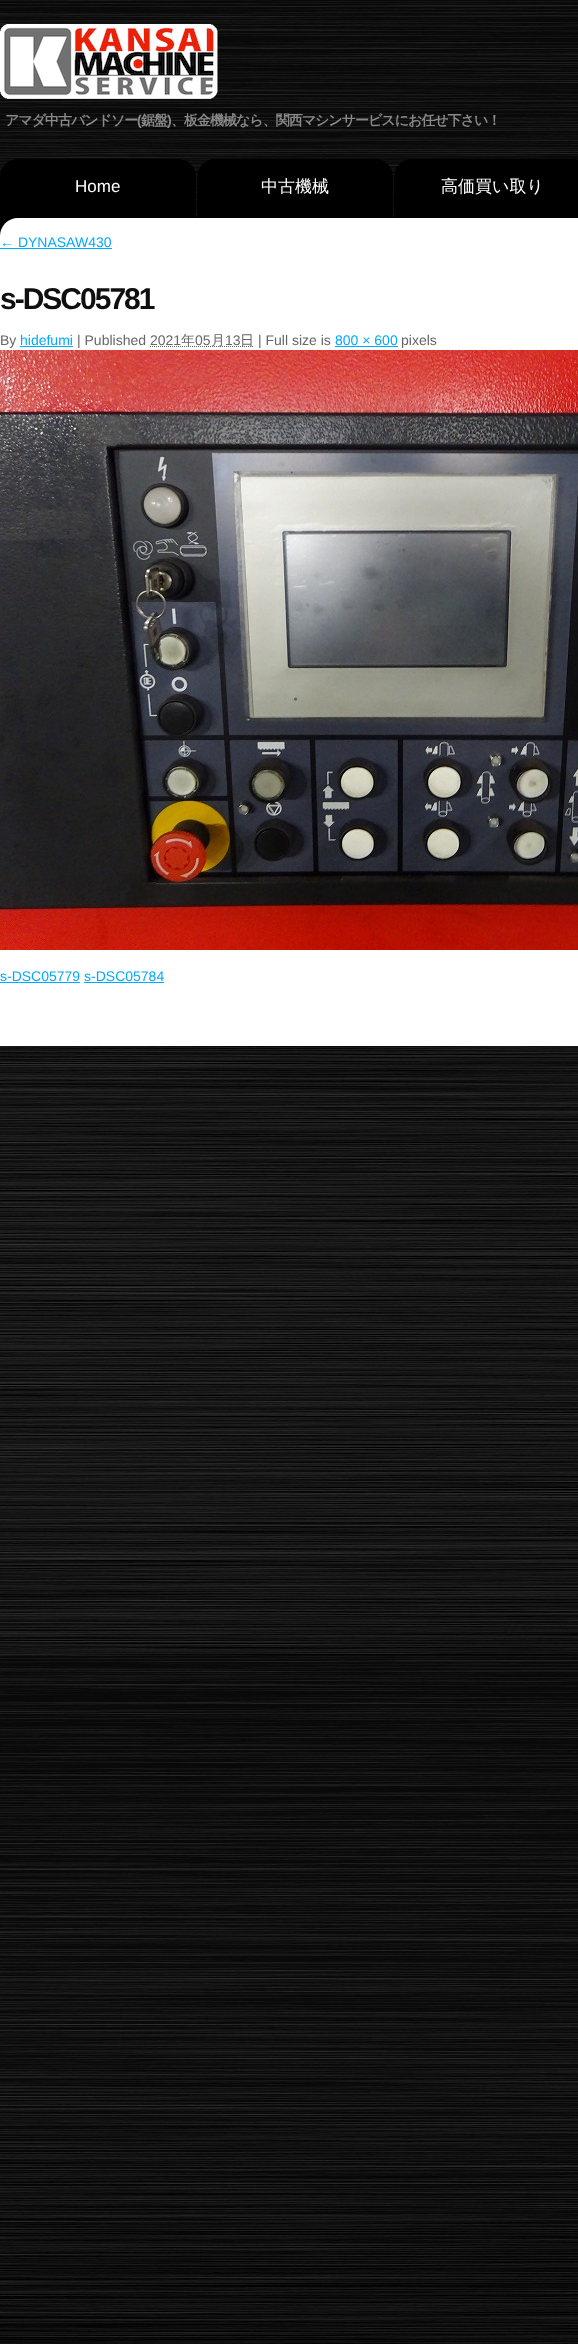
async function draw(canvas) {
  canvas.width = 578
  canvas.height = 2344
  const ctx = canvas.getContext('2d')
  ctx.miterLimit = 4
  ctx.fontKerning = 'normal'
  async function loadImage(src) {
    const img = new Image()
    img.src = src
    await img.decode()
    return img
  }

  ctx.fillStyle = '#fff'
  ctx.fillRect(0, 0, 578, 2344)
  ctx.drawImage(await loadImage('image0.png'), 0, 0, 578, 2344)
  ctx.drawImage(await loadImage('image1.png'), 0, 24, 218, 75)
  ctx.letterSpacing = '-1px'
  ctx.font = 'bold 14px WenQuanYi Zen Hei'
  ctx.fillStyle = '#8a8a8a'
  ctx.fillText('アマダ中古バンドソー', 5, 125)
  ctx.font = 'bold 14px Liberation Sans'
  ctx.fillText('(', 137, 125)
  ctx.font = 'bold 14px WenQuanYi Zen Hei'
  ctx.fillText('鋸盤', 141, 125)
  ctx.font = 'bold 14px Liberation Sans'
  ctx.fillText(')', 167, 125)
  ctx.font = 'bold 14px WenQuanYi Zen Hei'
  ctx.fillText('、板金機械なら、関西マシンサービスにお任せ下さい！', 171, 125)
  ctx.fillStyle = '#000'
  ctx.beginPath()
  ctx.roundRect(0, 159, 196, 75, [18, 18, 0, 0])
  ctx.fill()
  ctx.letterSpacing = '0px'
  ctx.font = '17px Liberation Sans'
  ctx.fillStyle = '#fff'
  ctx.fillText('Home', 75, 192)
  ctx.fillStyle = '#000'
  ctx.beginPath()
  ctx.roundRect(197, 159, 196, 75, [18, 18, 0, 0])
  ctx.fill()
  ctx.font = '500 17px WenQuanYi Zen Hei'
  ctx.fillStyle = '#fff'
  ctx.fillText('中古機械', 261, 192)
  ctx.fillStyle = '#000'
  ctx.beginPath()
  ctx.moveTo(412, 159)
  ctx.lineTo(572, 159)
  ctx.bezierCurveTo(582, 159, 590, 167, 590, 177)
  ctx.lineTo(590, 234)
  ctx.lineTo(394, 234)
  ctx.lineTo(394, 177)
  ctx.bezierCurveTo(394, 167, 402, 159, 412, 159)
  ctx.closePath()
  ctx.fill()
  ctx.fillStyle = '#fff'
  ctx.fillText('高価買い取り', 441, 192)
  ctx.beginPath()
  ctx.moveTo(18, 218)
  ctx.lineTo(578, 218)
  ctx.bezierCurveTo(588, 218, 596, 226, 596, 236)
  ctx.lineTo(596, 1046)
  ctx.lineTo(0, 1046)
  ctx.lineTo(0, 236)
  ctx.bezierCurveTo(0, 226, 8, 218, 18, 218)
  ctx.closePath()
  ctx.fill()
  ctx.font = '14px Liberation Sans'
  ctx.fillStyle = '#00a9ff'
  ctx.fillText('← DYNASAW430', 0, 247)
  ctx.fillRect(0, 248, 112, 1)
  ctx.letterSpacing = '-2px'
  ctx.font = 'bold 30px Liberation Sans'
  ctx.fillStyle = '#0f0f0f'
  ctx.fillText('s-DSC05781', 0, 309)
  ctx.letterSpacing = '0px'
  ctx.font = '14px Liberation Sans'
  ctx.fillStyle = '#666'
  ctx.fillText('By', 0, 345)
  ctx.fillStyle = '#00a9ff'
  ctx.fillText('hidefumi', 20, 345)
  ctx.fillRect(20, 346, 53, 1)
  ctx.fillStyle = '#666'
  ctx.fillText('| Published 2021', 77, 345)
  ctx.beginPath()
  ctx.moveTo(150, 346.5)
  ctx.lineTo(254, 346.5)
  ctx.strokeStyle = '#666'
  ctx.setLineDash([1, 1])
  ctx.stroke()
  ctx.font = '500 14px WenQuanYi Zen Hei'
  ctx.fillText('年', 181, 345)
  ctx.font = '14px Liberation Sans'
  ctx.fillText('05', 195, 345)
  ctx.font = '500 14px WenQuanYi Zen Hei'
  ctx.fillText('月', 211, 345)
  ctx.font = '14px Liberation Sans'
  ctx.fillText('13', 225, 345)
  ctx.font = '500 14px WenQuanYi Zen Hei'
  ctx.fillText('日', 240, 345)
  ctx.font = '14px Liberation Sans'
  ctx.fillText('| Full size is', 258, 345)
  ctx.fillStyle = '#00a9ff'
  ctx.fillText('800 × 600', 335, 345)
  ctx.fillRect(335, 346, 63, 1)
  ctx.fillStyle = '#666'
  ctx.fillText('pixels', 401, 345)
  ctx.drawImage(await loadImage('image2.png'), 0, 350, 578, 600)
  ctx.fillStyle = '#00a9ff'
  ctx.fillText('s-DSC05779 s-DSC05784', 0, 981)
  ctx.fillRect(0, 982, 80, 1)
  ctx.fillRect(84, 982, 80, 1)
}

draw(document.querySelector('canvas'))
